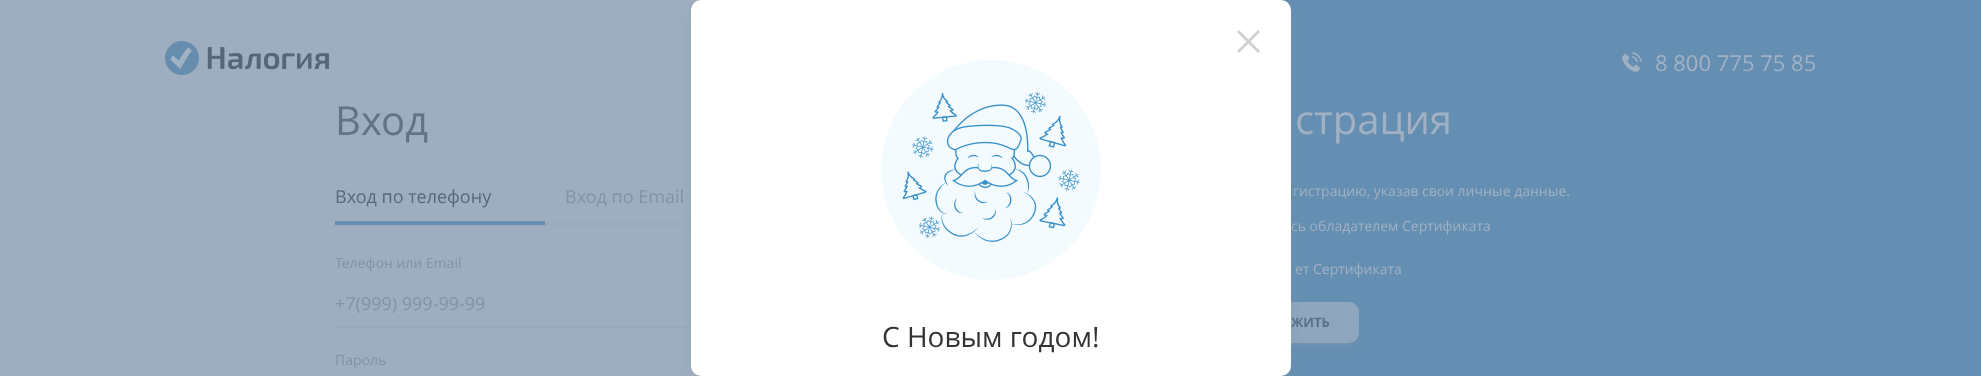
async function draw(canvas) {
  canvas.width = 1981
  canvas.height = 376
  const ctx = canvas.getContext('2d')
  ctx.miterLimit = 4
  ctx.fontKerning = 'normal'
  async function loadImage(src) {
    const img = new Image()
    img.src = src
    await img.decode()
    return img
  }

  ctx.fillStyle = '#9eaec0'
  ctx.fillRect(0, 0, 1981, 376)
  ctx.drawImage(await loadImage('image0.png'), 165, 41, 164, 34)
  ctx.font = '40px Open Sans'
  ctx.fillStyle = '#637386'
  ctx.fillText('Вход', 335, 135)
  ctx.fillStyle = '#9aaabd'
  ctx.fillRect(545, 223, 146, 2)
  ctx.font = '18px Open Sans'
  ctx.fillStyle = '#59697b'
  ctx.fillText('Вход по телефону', 335, 203)
  ctx.fillStyle = '#658fb2'
  ctx.fillRect(335, 221, 210, 4)
  ctx.fillStyle = '#8393a5'
  ctx.fillText('Вход по Email', 565, 203)
  ctx.font = '14px Open Sans'
  ctx.fillText('Телефон или Email', 335, 268)
  ctx.fillStyle = '#9aaabd'
  ctx.fillRect(335, 326, 356, 2)
  ctx.font = '18px Open Sans'
  ctx.fillStyle = '#8393a5'
  ctx.fillText('+7(999) 999-99-99', 335, 310)
  ctx.font = '14px Open Sans'
  ctx.fillText('Пароль', 335, 365)
  ctx.fillStyle = '#658fb2'
  ctx.fillRect(1281, 0, 700, 376)
  ctx.drawImage(await loadImage('image1.png'), 1622, 52, 20, 20)
  ctx.font = '22px Open Sans'
  ctx.fillStyle = '#a1b1c3'
  ctx.fillText('8 800 775 75 85', 1655, 71)
  ctx.font = '40px Open Sans'
  ctx.fillText('страция', 1295, 134)
  ctx.font = '14px Open Sans'
  ctx.fillText('гистрацию, указав свои личные данные.', 1293, 196)
  ctx.fillText('сь обладателем Сертификата', 1291, 231)
  ctx.fillText('ет Сертификата', 1295, 274)
  ctx.fillStyle = '#809ab2'
  ctx.filter = 'blur(4px)'
  ctx.beginPath()
  ctx.roundRect(1210, 310, 145, 33, 6)
  ctx.fill()
  ctx.filter = 'none'
  ctx.fillStyle = '#8fa7be'
  ctx.beginPath()
  ctx.roundRect(1206, 302, 153, 41, 10)
  ctx.fill()
  ctx.font = 'bold 13px Open Sans'
  ctx.fillStyle = '#597188'
  ctx.fillText('ЖИТЬ', 1291, 327)
  ctx.fillStyle = '#788fa9'
  ctx.filter = 'blur(10px)'
  ctx.beginPath()
  ctx.rect(701, 20, 580, 356)
  ctx.fill()
  ctx.filter = 'none'
  ctx.fillStyle = '#fff'
  ctx.beginPath()
  ctx.roundRect(691, 0, 600, 376, 10)
  ctx.fill()
  ctx.fillStyle = '#d1d1d1'
  ctx.beginPath()
  ctx.moveTo(1239, 30)
  ctx.lineTo(1260, 51)
  ctx.lineTo(1258, 53)
  ctx.lineTo(1237, 32)
  ctx.closePath()
  ctx.fill()
  ctx.beginPath()
  ctx.moveTo(1237, 51)
  ctx.lineTo(1258, 30)
  ctx.lineTo(1260, 32)
  ctx.lineTo(1239, 53)
  ctx.closePath()
  ctx.fill()
  ctx.fillStyle = '#f4fbff'
  ctx.beginPath()
  ctx.arc(991, 170, 110, 0, 2 * Math.PI)
  ctx.fill()
  ctx.drawImage(await loadImage('image2.png'), 902, 92, 178, 150)
  ctx.font = '28px Open Sans'
  ctx.fillStyle = '#333'
  ctx.fillText('С Новым годом!', 882, 347)
}

draw(document.querySelector('canvas'))
